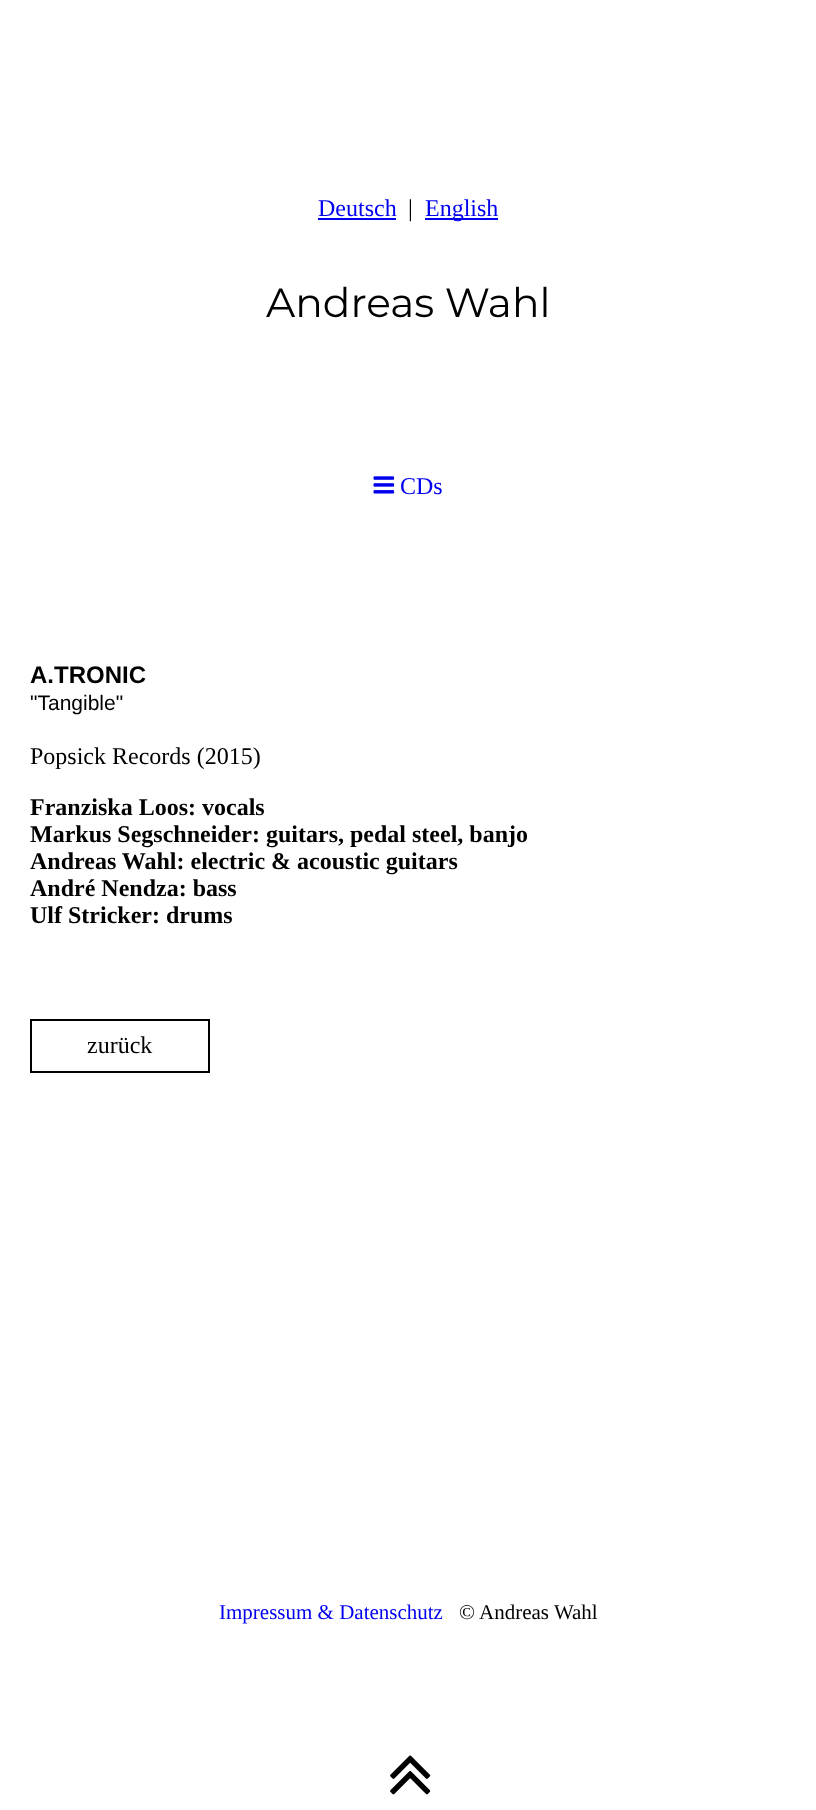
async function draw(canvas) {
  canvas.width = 816
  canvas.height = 1810
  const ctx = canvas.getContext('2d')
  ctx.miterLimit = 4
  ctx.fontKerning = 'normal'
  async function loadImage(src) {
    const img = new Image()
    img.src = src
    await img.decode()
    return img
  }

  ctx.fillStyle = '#fff'
  ctx.fillRect(0, 0, 816, 1810)
  ctx.font = '24px Liberation Serif'
  ctx.fillStyle = '#00e'
  ctx.fillText('Deutsch', 318, 216)
  ctx.fillRect(318, 218, 78, 2)
  ctx.fillStyle = '#000'
  ctx.fillText('|', 408, 216)
  ctx.fillStyle = '#00e'
  ctx.fillRect(425, 218, 73, 2)
  ctx.fillText('English', 425, 216)
  ctx.font = '40.75px Montserrat'
  ctx.fillStyle = '#000'
  ctx.fillText('Andreas Wahl', 266, 317)
  ctx.drawImage(await loadImage('image0.png'), 373, 476, 22, 18)
  ctx.font = '24px Liberation Serif'
  ctx.fillStyle = '#00e'
  ctx.fillText('CDs', 400, 494)
  ctx.font = 'bold 24px Liberation Sans'
  ctx.fillStyle = '#000'
  ctx.fillText('A.TRONIC', 30, 683)
  ctx.font = '21px Liberation Sans'
  ctx.fillText('"Tangible"', 30, 710)
  ctx.font = '24px Liberation Serif'
  ctx.fillText('Popsick Records (2015)', 30, 764)
  ctx.font = 'bold 24px Liberation Serif'
  ctx.fillText('Franziska Loos: vocals', 30, 815)
  ctx.fillText('Markus Segschneider: guitars, pedal steel, banjo', 30, 842)
  ctx.fillText('Andreas Wahl: electric & acoustic guitars', 30, 869)
  ctx.fillText('André Nendza: bass', 30, 896)
  ctx.fillText('Ulf Stricker: drums', 30, 923)
  ctx.strokeStyle = '#000'
  ctx.lineWidth = 2
  ctx.strokeRect(31, 1020, 178, 52)
  ctx.font = '24px Liberation Serif'
  ctx.fillText('zurück', 87, 1053)
  ctx.font = '21px Liberation Serif'
  ctx.fillStyle = '#00e'
  ctx.fillText('Impressum & Datenschutz', 219, 1619)
  ctx.fillStyle = '#000'
  ctx.fillText('© Andreas Wahl', 459, 1619)
  ctx.drawImage(await loadImage('image1.png'), 390, 1755, 41, 40)
}

draw(document.querySelector('canvas'))
